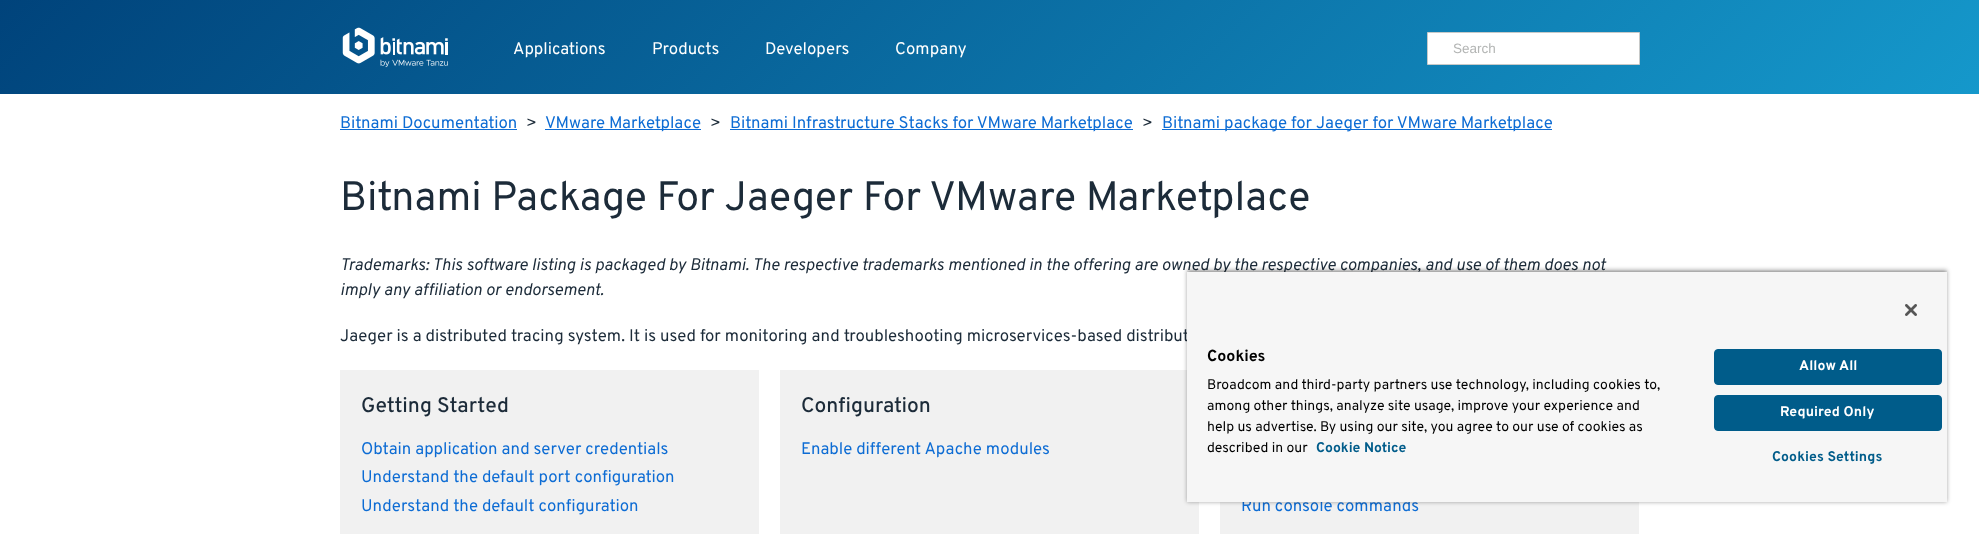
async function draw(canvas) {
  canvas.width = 1979
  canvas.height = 534
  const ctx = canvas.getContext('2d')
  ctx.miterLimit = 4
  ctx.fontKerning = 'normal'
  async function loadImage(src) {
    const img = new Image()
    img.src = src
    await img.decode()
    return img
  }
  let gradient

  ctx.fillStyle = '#fff'
  ctx.fillRect(0, 0, 1979, 534)
  gradient = ctx.createLinearGradient(471, -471, 1508, 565)
  gradient.addColorStop(0, '#00437b')
  gradient.addColorStop(1, '#1598cb')
  ctx.fillStyle = gradient
  ctx.fillRect(0, 0, 1979, 94)
  ctx.drawImage(await loadImage('image0.png'), 342, 27, 106, 41)
  ctx.font = '16.8px Overpass'
  ctx.fillStyle = '#fff'
  ctx.fillText('Applications', 513, 54)
  ctx.fillText('Products', 652, 54)
  ctx.fillText('Developers', 765, 54)
  ctx.fillText('Company', 895, 54)
  ctx.beginPath()
  ctx.rect(1427.5, 32.5, 212, 32)
  ctx.fill()
  ctx.strokeStyle = '#c7c9c8'
  ctx.stroke()
  ctx.font = '13.5px Liberation Sans'
  ctx.fillStyle = '#b3b5b4'
  ctx.fillText('Search', 1453, 53)
  ctx.font = '16.8px Overpass'
  ctx.fillStyle = '#0d6cd4'
  ctx.fillText('Bitnami Documentation', 340, 128)
  ctx.fillRect(340, 129, 177, 1)
  ctx.fillStyle = '#1c2b39'
  ctx.fillText('>', 526, 128)
  ctx.fillStyle = '#0d6cd4'
  ctx.fillRect(545, 129, 156, 1)
  ctx.fillText('VMware Marketplace', 545, 128)
  ctx.fillStyle = '#1c2b39'
  ctx.fillText('>', 710, 128)
  ctx.fillStyle = '#0d6cd4'
  ctx.fillRect(730, 129, 403, 1)
  ctx.fillText('Bitnami Infrastructure Stacks for VMware Marketplace', 730, 128)
  ctx.fillStyle = '#1c2b39'
  ctx.fillText('>', 1142, 128)
  ctx.fillStyle = '#0d6cd4'
  ctx.fillRect(1162, 129, 390, 1)
  ctx.fillText('Bitnami package for Jaeger for VMware Marketplace', 1162, 128)
  ctx.font = '41px Overpass'
  ctx.fillStyle = '#1c2b39'
  ctx.fillText('Bitnami Package For Jaeger For VMware Marketplace', 340, 210)
  ctx.font = 'italic 16.8px Overpass'
  ctx.fillText('Trademarks: This software listing is packaged by Bitnami. The respective trademarks mentioned in the offering are owned by the respective companies, and use of them does not', 340, 270)
  ctx.fillText('imply any affiliation or endorsement.', 340, 295)
  ctx.font = '16.8px Overpass'
  ctx.fillText('Jaeger is a distributed tracing system. It is used for monitoring and troubleshooting microservices-based distribut', 340, 341)
  ctx.fillStyle = '#f1f1f1'
  ctx.fillRect(340, 370, 419, 164)
  ctx.font = '500 21px Overpass'
  ctx.fillStyle = '#1c2b39'
  ctx.fillText('Getting Started', 361, 412)
  ctx.font = '16.8px Overpass'
  ctx.fillStyle = '#0d6cd4'
  ctx.fillText('Obtain application and server credentials', 361, 454)
  ctx.fillText('Understand the default port configuration', 361, 482)
  ctx.fillText('Understand the default configuration', 361, 511)
  ctx.fillStyle = '#f1f1f1'
  ctx.fillRect(780, 370, 419, 164)
  ctx.font = '500 21px Overpass'
  ctx.fillStyle = '#1c2b39'
  ctx.fillText('Configuration', 801, 412)
  ctx.font = '16.8px Overpass'
  ctx.fillStyle = '#0d6cd4'
  ctx.fillText('Enable different Apache modules', 801, 454)
  ctx.fillStyle = '#f1f1f1'
  ctx.fillRect(1220, 502, 419, 32)
  ctx.fillStyle = '#0d6cd4'
  ctx.fillText('Run console commands', 1241, 511)
  ctx.fillStyle = '#00000059'
  ctx.filter = 'blur(2px)'
  ctx.beginPath()
  ctx.rect(1187, 270, 760, 232)
  ctx.fill()
  ctx.filter = 'none'
  ctx.save()
  ctx.beginPath()
  ctx.rect(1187, 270, 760, 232)
  ctx.clip()
  ctx.fillStyle = '#00000033'
  ctx.filter = 'blur(2px)'
  ctx.beginPath()
  ctx.rect(1187, 272, 760, 230)
  ctx.fill()
  ctx.filter = 'none'
  ctx.restore()
  ctx.fillStyle = '#f6f6f6'
  ctx.fillRect(1187, 272, 760, 230)
  ctx.drawImage(await loadImage('image1.png'), 1905, 304, 12, 12)
  ctx.font = 'bold 16px Overpass'
  ctx.fillStyle = '#000'
  ctx.fillText('Cookies', 1207, 361)
  ctx.font = '14px Overpass'
  ctx.fillText('Broadcom and third-party partners use technology, including cookies to,', 1207, 389)
  ctx.fillText('among other things, analyze site usage, improve your experience and', 1207, 410)
  ctx.fillText('help us advertise. By using our site, you agree to our use of cookies as', 1207, 431)
  ctx.fillText('described in our', 1207, 452)
  ctx.font = 'bold 14px Overpass'
  ctx.fillStyle = '#005c8a'
  ctx.fillText('Cookie Notice', 1316, 452)
  ctx.beginPath()
  ctx.roundRect(1714.5, 349.5, 227, 35, 3.5)
  ctx.fill()
  ctx.strokeStyle = '#005c8a'
  ctx.stroke()
  ctx.letterSpacing = '0.1px'
  ctx.fillStyle = '#fff'
  ctx.fillText('Allow All', 1799, 370)
  ctx.fillStyle = '#005c8a'
  ctx.beginPath()
  ctx.roundRect(1714.5, 395.5, 227, 35, 3.5)
  ctx.fill()
  ctx.stroke()
  ctx.fillStyle = '#fff'
  ctx.fillText('Required Only', 1780, 416)
  ctx.fillStyle = '#005c8a'
  ctx.fillText('Cookies Settings', 1772, 461)
}

draw(document.querySelector('canvas'))
